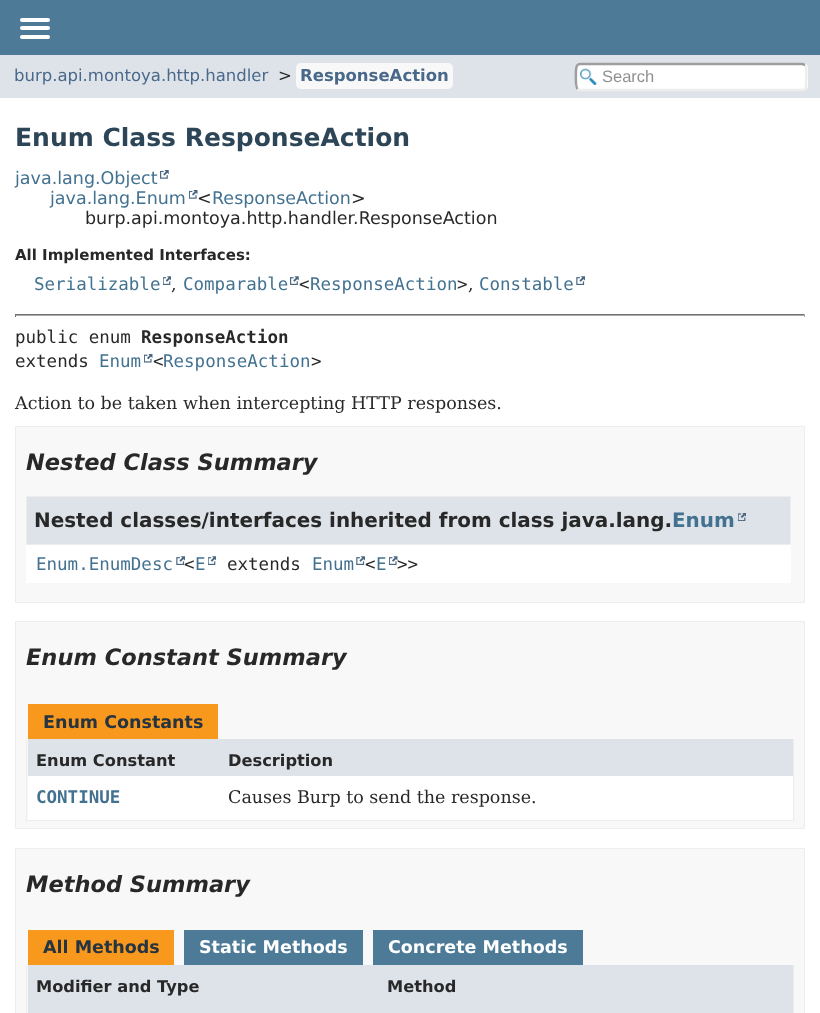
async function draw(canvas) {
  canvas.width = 820
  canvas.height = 1013
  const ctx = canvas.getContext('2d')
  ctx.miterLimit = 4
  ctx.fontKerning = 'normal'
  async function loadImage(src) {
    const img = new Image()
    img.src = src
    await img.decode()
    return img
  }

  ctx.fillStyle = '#fff'
  ctx.fillRect(0, 0, 820, 1013)
  ctx.fillStyle = '#4d7a97'
  ctx.fillRect(0, 0, 820, 55)
  ctx.fillStyle = '#fff'
  ctx.beginPath()
  ctx.roundRect(20, 18, 30, 4, 2)
  ctx.fill()
  ctx.beginPath()
  ctx.roundRect(20, 26, 30, 4, 2)
  ctx.fill()
  ctx.beginPath()
  ctx.roundRect(20, 35, 30, 4, 2)
  ctx.fill()
  ctx.fillStyle = '#dee3e9'
  ctx.fillRect(0, 55, 820, 43)
  ctx.font = '16.5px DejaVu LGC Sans'
  ctx.fillStyle = '#4a698a'
  ctx.fillText('burp.api.montoya.http.handler', 14, 81)
  ctx.fillStyle = '#282828'
  ctx.fillText('>', 278, 81)
  ctx.fillStyle = '#f8f8f8'
  ctx.beginPath()
  ctx.roundRect(296, 63, 157, 26, 5)
  ctx.fill()
  ctx.font = 'bold 16.5px DejaVu LGC Sans'
  ctx.fillStyle = '#4a698a'
  ctx.fillText('ResponseAction', 300, 81)
  ctx.fillStyle = '#fff'
  ctx.beginPath()
  ctx.roundRect(575, 63, 233, 28, 5)
  ctx.fill()
  ctx.drawImage(await loadImage('image0.png'), 580, 68, 17, 17)
  ctx.beginPath()
  ctx.moveTo(805, 65)
  ctx.bezierCurveTo(807.5, 67, 806, 79.5, 806, 83)
  ctx.bezierCurveTo(806, 86, 806.5, 90, 802.5, 90)
  ctx.lineTo(580, 90)
  ctx.lineTo(577.5, 89)
  ctx.strokeStyle = '#ededed'
  ctx.lineWidth = 2.5
  ctx.stroke()
  ctx.beginPath()
  ctx.moveTo(577.5, 89)
  ctx.bezierCurveTo(575, 86.5, 576, 74, 576, 70.5)
  ctx.bezierCurveTo(576, 68, 576, 64, 580, 64)
  ctx.lineTo(802.5, 64)
  ctx.lineTo(805, 65)
  ctx.strokeStyle = '#9e9e9e'
  ctx.stroke()
  ctx.font = '16.5px Liberation Sans'
  ctx.fillStyle = '#909090'
  ctx.fillText('Search', 602, 82)
  ctx.font = 'bold 25px DejaVu LGC Sans'
  ctx.fillStyle = '#2c4557'
  ctx.fillText('Enum Class ResponseAction', 15, 146)
  ctx.font = '17.5px DejaVu LGC Sans'
  ctx.fillStyle = '#437291'
  ctx.fillText('java.lang.Object', 15, 184)
  ctx.drawImage(await loadImage('image1.png'), 160, 170, 9, 9)
  ctx.fillText('java.lang.Enum', 50, 204)
  ctx.drawImage(await loadImage('image2.png'), 189, 190, 9, 9)
  ctx.fillStyle = '#282828'
  ctx.fillText('<', 197, 204)
  ctx.fillStyle = '#437291'
  ctx.fillText('ResponseAction', 212, 204)
  ctx.fillStyle = '#282828'
  ctx.fillText('>', 351, 204)
  ctx.fillText('burp.api.montoya.http.handler.ResponseAction', 85, 224)
  ctx.font = 'bold 15px DejaVu LGC Sans'
  ctx.fillText('All Implemented Interfaces:', 15, 260)
  ctx.font = '17.5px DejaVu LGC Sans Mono'
  ctx.fillStyle = '#437291'
  ctx.fillText('Serializable', 34, 290)
  ctx.drawImage(await loadImage('image3.png'), 163, 276, 8, 9)
  ctx.font = '17.5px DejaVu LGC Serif'
  ctx.fillStyle = '#282828'
  ctx.fillText(',', 171, 290)
  ctx.font = '17.5px DejaVu LGC Sans Mono'
  ctx.fillStyle = '#437291'
  ctx.fillText('Comparable', 183, 290)
  ctx.drawImage(await loadImage('image4.png'), 290, 276, 9, 9)
  ctx.fillStyle = '#282828'
  ctx.fillText('<', 299, 290)
  ctx.fillStyle = '#437291'
  ctx.fillText('ResponseAction', 310, 290)
  ctx.fillStyle = '#282828'
  ctx.fillText('>', 457, 290)
  ctx.font = '17.5px DejaVu LGC Serif'
  ctx.fillText(',', 468, 290)
  ctx.font = '17.5px DejaVu LGC Sans Mono'
  ctx.fillStyle = '#437291'
  ctx.fillText('Constable', 479, 290)
  ctx.drawImage(await loadImage('image5.png'), 576, 276, 9, 9)
  ctx.fillStyle = '#717171'
  ctx.fillRect(15, 314, 790, 1)
  ctx.fillStyle = '#aaa'
  ctx.fillRect(804, 314, 1, 3)
  ctx.fillRect(15, 315, 790, 1)
  ctx.fillStyle = '#717171'
  ctx.fillRect(15, 314, 1, 3)
  ctx.fillStyle = '#282828'
  ctx.fillText('public enum', 15, 343)
  ctx.font = 'bold 17.5px DejaVu LGC Sans Mono'
  ctx.fillText('ResponseAction', 141, 343)
  ctx.font = '17.5px DejaVu LGC Sans Mono'
  ctx.fillText('extends', 15, 367)
  ctx.fillStyle = '#437291'
  ctx.fillText('Enum', 99, 367)
  ctx.drawImage(await loadImage('image6.png'), 144, 354, 9, 9)
  ctx.fillStyle = '#282828'
  ctx.fillText('<', 153, 367)
  ctx.fillStyle = '#437291'
  ctx.fillText('ResponseAction', 163, 367)
  ctx.fillStyle = '#282828'
  ctx.fillText('>', 311, 367)
  ctx.font = '17.5px DejaVu LGC Serif'
  ctx.fillText('Action to be taken when intercepting HTTP responses.', 15, 409)
  ctx.fillStyle = '#f8f8f8'
  ctx.beginPath()
  ctx.rect(15.5, 426.5, 789, 176)
  ctx.fill()
  ctx.strokeStyle = '#ededed'
  ctx.lineWidth = 1
  ctx.stroke()
  ctx.font = 'italic bold 22.5px DejaVu LGC Sans'
  ctx.fillStyle = '#282828'
  ctx.fillText('Nested Class Summary', 26, 470)
  ctx.fillStyle = '#fff'
  ctx.fillRect(26, 545, 765, 38)
  ctx.fillStyle = '#dee3e9'
  ctx.beginPath()
  ctx.rect(26.5, 496.5, 764, 48)
  ctx.fill()
  ctx.stroke()
  ctx.font = 'bold 19.95px DejaVu LGC Sans'
  ctx.fillStyle = '#282828'
  ctx.fillText('Nested classes/interfaces inherited from class java.lang.', 34, 527)
  ctx.fillStyle = '#437291'
  ctx.fillText('Enum', 672, 527)
  ctx.drawImage(await loadImage('image7.png'), 738, 513, 8, 8)
  ctx.font = '17.5px DejaVu LGC Sans Mono'
  ctx.fillText('Enum.EnumDesc', 36, 570)
  ctx.drawImage(await loadImage('image5.png'), 176, 556, 9, 9)
  ctx.fillStyle = '#282828'
  ctx.fillText('<', 184, 570)
  ctx.fillStyle = '#437291'
  ctx.fillText('E', 195, 570)
  ctx.drawImage(await loadImage('image3.png'), 208, 556, 8, 9)
  ctx.fillStyle = '#282828'
  ctx.fillText('extends', 227, 570)
  ctx.fillStyle = '#437291'
  ctx.fillText('Enum', 312, 570)
  ctx.drawImage(await loadImage('image5.png'), 356, 556, 9, 9)
  ctx.fillStyle = '#282828'
  ctx.fillText('<', 365, 570)
  ctx.fillStyle = '#437291'
  ctx.fillText('E', 376, 570)
  ctx.drawImage(await loadImage('image8.png'), 389, 556, 9, 9)
  ctx.fillStyle = '#282828'
  ctx.fillText('>>', 397, 570)
  ctx.fillStyle = '#f8f8f8'
  ctx.beginPath()
  ctx.rect(15.5, 621.5, 789, 207)
  ctx.fill()
  ctx.stroke()
  ctx.font = 'italic bold 22.5px DejaVu LGC Sans'
  ctx.fillStyle = '#282828'
  ctx.fillText('Enum Constant Summary', 26, 665)
  ctx.fillStyle = '#f8981d'
  ctx.fillRect(28, 704, 190, 35)
  ctx.font = 'bold 17.5px DejaVu LGC Sans'
  ctx.fillStyle = '#253441'
  ctx.fillText('Enum Constants', 43, 728)
  ctx.fillStyle = '#ededed'
  ctx.fillRect(793, 739, 1, 82)
  ctx.fillRect(26, 820, 768, 1)
  ctx.fillRect(26, 739, 1, 82)
  ctx.fillStyle = '#dee3e9'
  ctx.fillRect(28, 739, 765, 37)
  ctx.font = 'bold 16.25px DejaVu LGC Sans'
  ctx.fillStyle = '#282828'
  ctx.fillText('Enum Constant', 36, 766)
  ctx.fillText('Description', 228, 766)
  ctx.fillStyle = '#fff'
  ctx.fillRect(28, 776, 765, 44)
  ctx.font = 'bold 17.5px DejaVu LGC Sans Mono'
  ctx.fillStyle = '#437291'
  ctx.fillText('CONTINUE', 36, 803)
  ctx.font = '17.5px DejaVu LGC Serif'
  ctx.fillStyle = '#282828'
  ctx.fillText('Causes Burp to send the response.', 228, 803)
  ctx.fillStyle = '#f8f8f8'
  ctx.beginPath()
  ctx.rect(15.5, 848.5, 789, 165)
  ctx.fill()
  ctx.stroke()
  ctx.font = 'italic bold 22.5px DejaVu LGC Sans'
  ctx.fillStyle = '#282828'
  ctx.fillText('Method Summary', 26, 892)
  ctx.fillStyle = '#f8981d'
  ctx.fillRect(28, 930, 146, 35)
  ctx.font = 'bold 17.5px DejaVu LGC Sans'
  ctx.fillStyle = '#253441'
  ctx.fillText('All Methods', 43, 953)
  ctx.fillStyle = '#4d7a97'
  ctx.fillRect(184, 930, 179, 35)
  ctx.fillStyle = '#fff'
  ctx.fillText('Static Methods', 199, 953)
  ctx.fillStyle = '#4d7a97'
  ctx.fillRect(373, 930, 210, 35)
  ctx.fillStyle = '#fff'
  ctx.fillText('Concrete Methods', 388, 953)
  ctx.fillStyle = '#ededed'
  ctx.fillRect(793, 965, 1, 48)
  ctx.fillRect(26, 965, 1, 48)
  ctx.fillStyle = '#dee3e9'
  ctx.fillRect(28, 965, 765, 48)
  ctx.font = 'bold 16.25px DejaVu LGC Sans'
  ctx.fillStyle = '#282828'
  ctx.fillText('Modifier and Type', 36, 992)
  ctx.fillText('Method', 387, 992)
}

draw(document.querySelector('canvas'))
